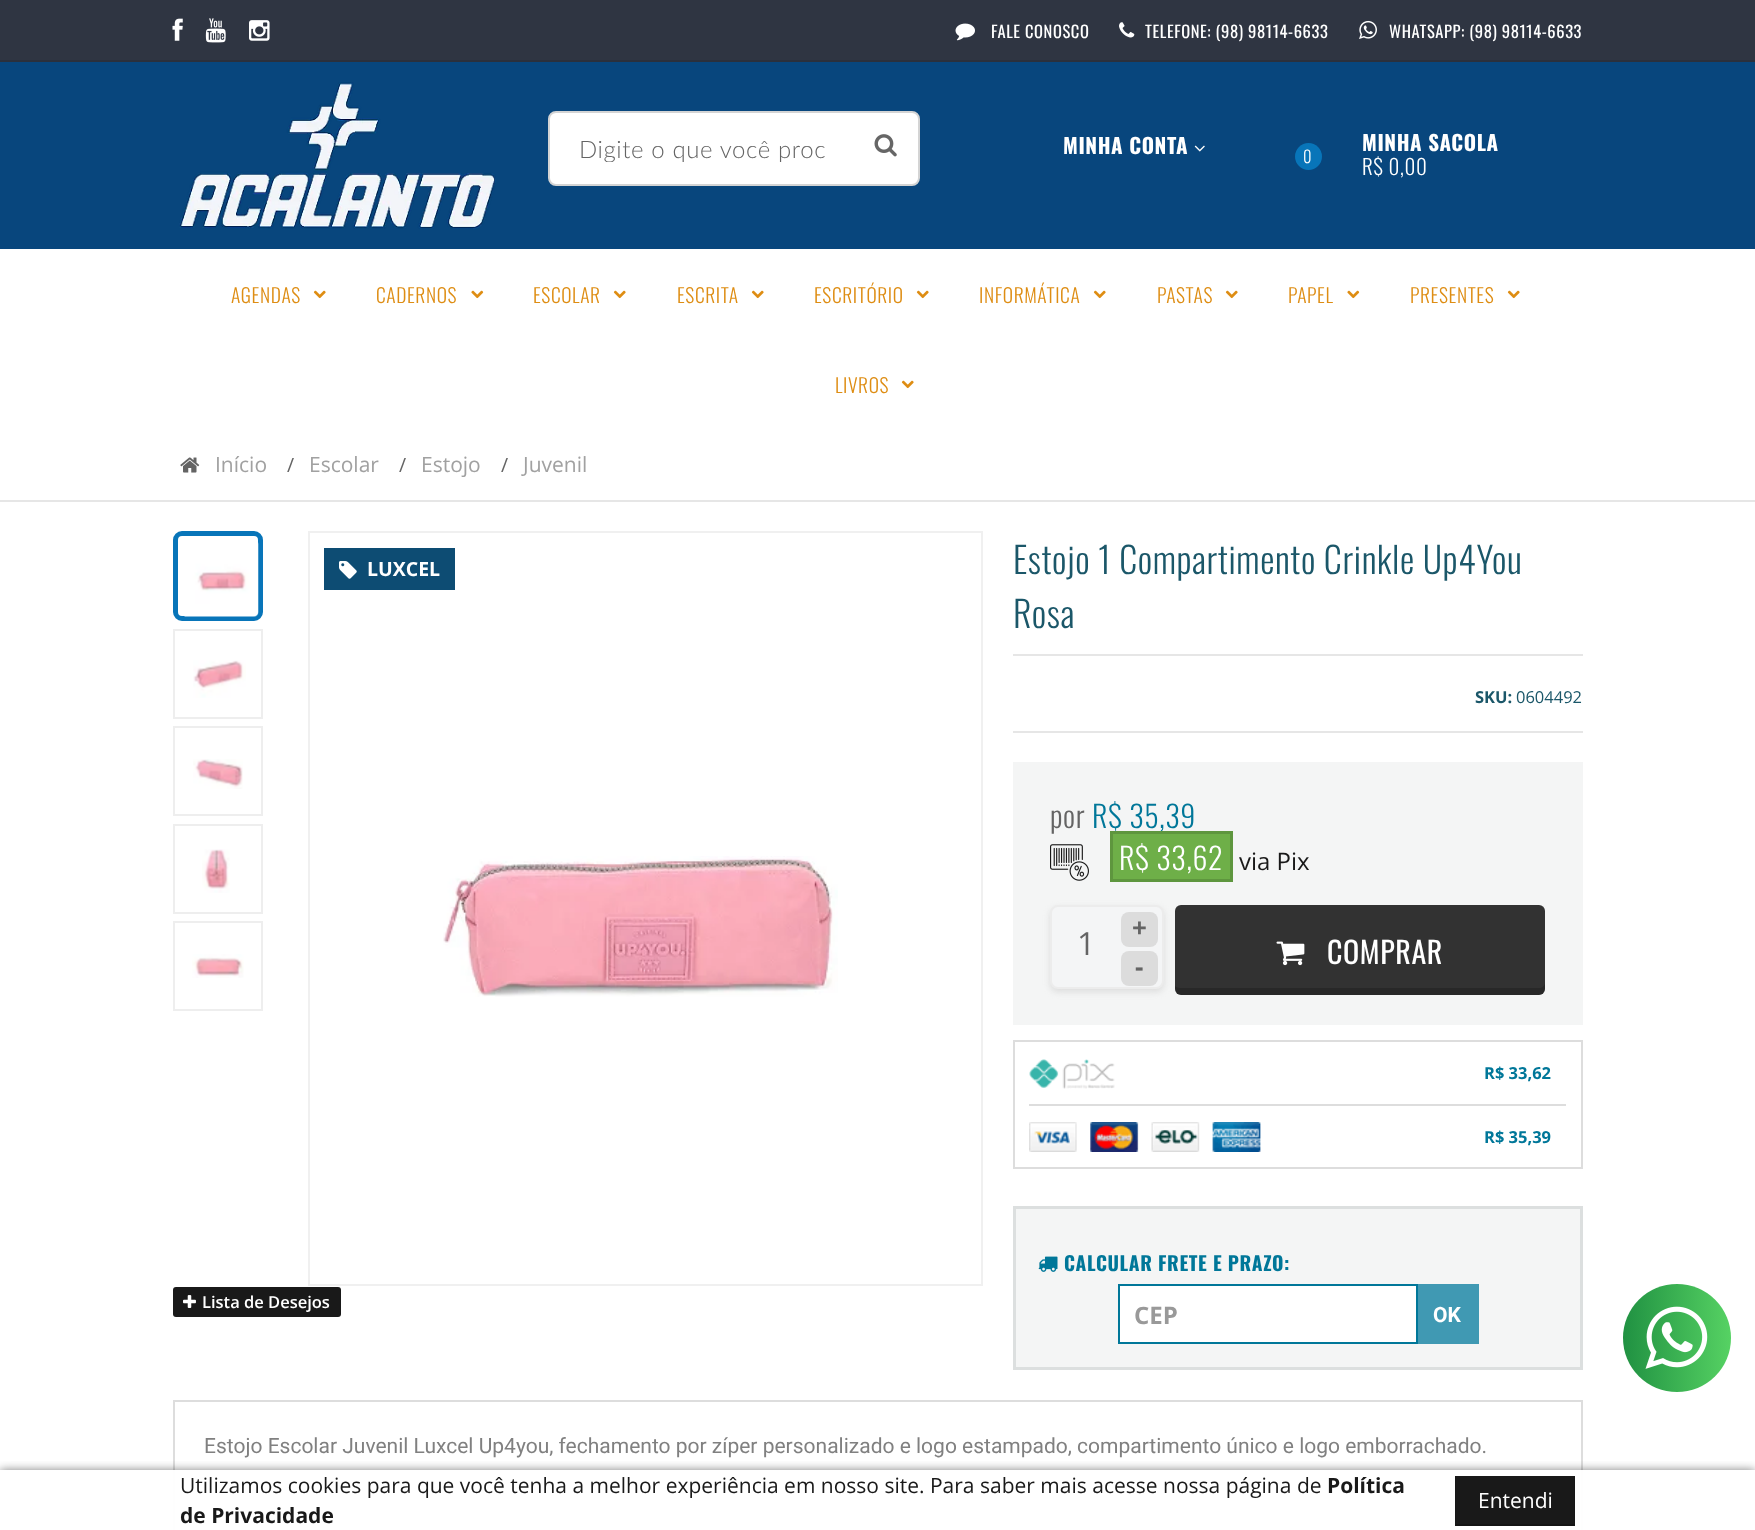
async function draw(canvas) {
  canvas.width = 1755
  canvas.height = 1530
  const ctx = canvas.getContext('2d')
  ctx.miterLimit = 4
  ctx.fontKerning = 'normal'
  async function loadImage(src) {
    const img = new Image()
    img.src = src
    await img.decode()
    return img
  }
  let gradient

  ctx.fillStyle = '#fff'
  ctx.fillRect(0, 0, 1755, 1530)
  ctx.fillStyle = '#2f3542'
  ctx.fillRect(0, 0, 1755, 60)
  ctx.fillStyle = '#2b303c'
  ctx.fillRect(0, 60, 1755, 2)
  ctx.drawImage(await loadImage('image0.png'), 172, 18, 11, 23)
  ctx.drawImage(await loadImage('image1.png'), 205, 18, 21, 25)
  ctx.drawImage(await loadImage('image2.png'), 249, 20, 21, 21)
  ctx.drawImage(await loadImage('image3.png'), 955, 23, 20, 18)
  ctx.letterSpacing = '0.6px'
  ctx.font = '16.5px Oswald'
  ctx.fillStyle = '#fff'
  ctx.fillText('FALE CONOSCO', 991, 38)
  ctx.drawImage(await loadImage('image4.png'), 1119, 22, 16, 16)
  ctx.fillText('TELEFONE: (98) 98114-6633', 1145, 38)
  ctx.drawImage(await loadImage('image5.png'), 1359, 20, 18, 19)
  ctx.fillText('WHATSAPP: (98) 98114-6633', 1389, 38)
  ctx.fillStyle = '#08467d'
  ctx.fillRect(0, 62, 1755, 187)
  ctx.drawImage(await loadImage('image6.png'), 179, 82, 317, 147)
  ctx.fillStyle = '#fff'
  ctx.beginPath()
  ctx.roundRect(549, 112, 370, 73, 7)
  ctx.fill()
  ctx.strokeStyle = '#d4d4d4'
  ctx.lineWidth = 2
  ctx.stroke()
  ctx.save()
  ctx.beginPath()
  ctx.rect(579, 134, 252, 28)
  ctx.clip()
  ctx.font = '300 24px Lato'
  ctx.fillStyle = '#646464'
  ctx.fillText('Digite o que você proc', 579, 158)
  ctx.restore()
  ctx.drawImage(await loadImage('image7.png'), 874, 134, 23, 23)
  ctx.font = 'bold 21px Oswald'
  ctx.fillText('MINHA CONTA', 1063, 154)
  ctx.drawImage(await loadImage('image8.png'), 1194, 145, 11, 7)
  ctx.fillStyle = '#0875b9'
  ctx.beginPath()
  ctx.arc(1308.5, 156.5, 13.5, 0, 2 * Math.PI)
  ctx.fill()
  ctx.font = '300 16.5px Oswald'
  ctx.fillStyle = '#fff'
  ctx.fillText('0', 1303, 163)
  ctx.font = 'bold 21px Oswald'
  ctx.fillText('MINHA SACOLA', 1362, 151)
  ctx.font = '300 21px Oswald'
  ctx.fillText('R$ 0,00', 1362, 175)
  ctx.font = '300 19.5px Oswald'
  ctx.fillStyle = '#de8d13'
  ctx.fillText('AGENDAS', 231, 303)
  ctx.drawImage(await loadImage('image9.png'), 313, 290, 13, 9)
  ctx.fillText('CADERNOS', 376, 303)
  ctx.drawImage(await loadImage('image10.png'), 471, 290, 13, 9)
  ctx.fillText('ESCOLAR', 533, 303)
  ctx.drawImage(await loadImage('image9.png'), 613, 290, 13, 9)
  ctx.fillText('ESCRITA', 677, 303)
  ctx.drawImage(await loadImage('image9.png'), 751, 290, 13, 9)
  ctx.fillText('ESCRITÓRIO', 814, 303)
  ctx.drawImage(await loadImage('image9.png'), 916, 290, 13, 9)
  ctx.fillText('INFORMÁTICA', 979, 303)
  ctx.drawImage(await loadImage('image9.png'), 1093, 290, 13, 9)
  ctx.fillText('PASTAS', 1157, 303)
  ctx.drawImage(await loadImage('image9.png'), 1225, 290, 13, 9)
  ctx.fillText('PAPEL', 1288, 303)
  ctx.drawImage(await loadImage('image10.png'), 1347, 290, 13, 9)
  ctx.fillText('PRESENTES', 1410, 303)
  ctx.drawImage(await loadImage('image9.png'), 1507, 290, 13, 9)
  ctx.fillText('LIVROS', 835, 393)
  ctx.drawImage(await loadImage('image9.png'), 901, 380, 13, 9)
  ctx.fillStyle = '#e6e6e6'
  ctx.fillRect(0, 500, 1755, 2)
  ctx.drawImage(await loadImage('image11.png'), 180, 457, 20, 16)
  ctx.letterSpacing = '0px'
  ctx.font = '21px Open Sans'
  ctx.fillStyle = '#a1a1a1'
  ctx.fillText('Início', 215, 472)
  ctx.font = '19.5px Open Sans'
  ctx.fillStyle = '#646464'
  ctx.fillText('/', 287, 472)
  ctx.font = '21px Open Sans'
  ctx.fillStyle = '#a1a1a1'
  ctx.fillText('Escolar', 309, 472)
  ctx.font = '19.5px Open Sans'
  ctx.fillStyle = '#646464'
  ctx.fillText('/', 399, 472)
  ctx.font = '21px Open Sans'
  ctx.fillStyle = '#a1a1a1'
  ctx.fillText('Estojo', 421, 472)
  ctx.font = '19.5px Open Sans'
  ctx.fillStyle = '#646464'
  ctx.fillText('/', 501, 472)
  ctx.font = '21px Open Sans'
  ctx.fillStyle = '#a1a1a1'
  ctx.fillText('Juvenil', 523, 472)
  ctx.beginPath()
  ctx.roundRect(175.5, 533.5, 85, 85, 6.5)
  ctx.strokeStyle = '#0875b9'
  ctx.lineWidth = 5
  ctx.stroke()
  ctx.drawImage(await loadImage('image12.png'), 184, 542, 75, 75)
  ctx.strokeStyle = '#eee'
  ctx.lineWidth = 2
  ctx.strokeRect(174, 630, 88, 88)
  ctx.drawImage(await loadImage('image13.png'), 193, 660, 53, 38)
  ctx.strokeRect(174, 727, 88, 88)
  ctx.drawImage(await loadImage('image14.png'), 193, 759, 50, 30)
  ctx.strokeRect(174, 825, 88, 88)
  ctx.drawImage(await loadImage('image15.png'), 202, 849, 28, 44)
  ctx.strokeRect(174, 922, 88, 88)
  ctx.drawImage(await loadImage('image16.png'), 192, 954, 52, 24)
  ctx.strokeStyle = '#f0f0f0'
  ctx.strokeRect(309, 532, 673, 753)
  ctx.fillStyle = '#0d4c73'
  ctx.fillRect(324, 548, 131, 42)
  ctx.drawImage(await loadImage('image17.png'), 339, 561, 18, 18)
  ctx.font = 'bold 19.5px Open Sans'
  ctx.fillStyle = '#fff'
  ctx.fillText('LUXCEL', 367, 576)
  ctx.drawImage(await loadImage('image18.png'), 443, 856, 395, 141)
  ctx.fillStyle = '#191919'
  ctx.beginPath()
  ctx.roundRect(173, 1287, 168, 30, 3)
  ctx.fill()
  ctx.drawImage(await loadImage('image19.png'), 183, 1295, 13, 13)
  ctx.font = '600 16.5px Open Sans'
  ctx.fillStyle = '#fff'
  ctx.fillText('Lista de Desejos', 202, 1308)
  ctx.letterSpacing = '0.6px'
  ctx.font = '300 36px Oswald'
  ctx.fillStyle = '#1b5769'
  ctx.fillText('Estojo 1 Compartimento Crinkle Up4You', 1013, 574)
  ctx.fillText('Rosa', 1013, 628)
  ctx.fillStyle = '#e6e6e6'
  ctx.fillRect(1013, 654, 570, 2)
  ctx.fillRect(1013, 731, 570, 2)
  ctx.letterSpacing = '0px'
  ctx.font = 'bold 16.5px Open Sans'
  ctx.fillStyle = '#1b5769'
  ctx.fillText('SKU:', 1475, 703)
  ctx.font = '16.5px Open Sans'
  ctx.fillText('0604492', 1516, 703)
  ctx.fillStyle = '#f4f5f5'
  ctx.fillRect(1013, 762, 570, 263)
  ctx.letterSpacing = '0.6px'
  ctx.font = '300 30px Oswald'
  ctx.fillStyle = '#646464'
  ctx.fillText('por', 1050, 828)
  ctx.fillStyle = '#079'
  ctx.fillText('R$ 35,39', 1092, 828)
  ctx.drawImage(await loadImage('image20.png'), 1050, 844, 39, 37)
  ctx.fillStyle = '#6eaf48'
  ctx.beginPath()
  ctx.rect(1111.5, 832.5, 120, 48)
  ctx.fill()
  ctx.strokeStyle = '#5e963e'
  ctx.lineWidth = 3
  ctx.stroke()
  ctx.fillStyle = '#fff'
  ctx.fillText('R$ 33,62', 1119, 870)
  ctx.letterSpacing = '0px'
  ctx.font = '24px Open Sans'
  ctx.fillStyle = '#191919'
  ctx.fillText('via Pix', 1239, 870)
  ctx.fillStyle = '#cbcbcb8c'
  ctx.filter = 'blur(3px)'
  ctx.beginPath()
  ctx.roundRect(1050, 908, 114, 84, 8)
  ctx.fill()
  ctx.filter = 'none'
  ctx.fillStyle = '#f4f5f6'
  ctx.beginPath()
  ctx.roundRect(1051, 906, 112, 82, 7)
  ctx.fill()
  ctx.strokeStyle = '#ececec'
  ctx.lineWidth = 2
  ctx.stroke()
  ctx.font = '32px Open Sans'
  ctx.fillStyle = '#646464'
  ctx.fillText('1', 1077, 955)
  ctx.fillStyle = '#dcdcdc'
  ctx.beginPath()
  ctx.roundRect(1121, 912, 37, 35, 8)
  ctx.fill()
  ctx.font = 'bold 26px Open Sans'
  ctx.fillStyle = '#646464'
  ctx.fillText('+', 1132, 937)
  ctx.fillStyle = '#dcdcdc'
  ctx.beginPath()
  ctx.roundRect(1121, 951, 37, 35, 8)
  ctx.fill()
  ctx.fillStyle = '#646464'
  ctx.fillText('-', 1135, 976)
  ctx.fillStyle = '#323232'
  ctx.beginPath()
  ctx.roundRect(1175, 905, 370, 90, 6)
  ctx.fill()
  ctx.fillStyle = '#00000033'
  ctx.beginPath()
  ctx.moveTo(1175, 986)
  ctx.lineTo(1175, 989)
  ctx.bezierCurveTo(1175, 992, 1178, 995, 1181, 995)
  ctx.lineTo(1539, 995)
  ctx.bezierCurveTo(1542, 995, 1545, 992, 1545, 989)
  ctx.lineTo(1545, 982)
  ctx.bezierCurveTo(1545, 986, 1542, 988, 1539, 988)
  ctx.lineTo(1180, 988)
  ctx.bezierCurveTo(1178, 988, 1176, 987, 1175, 986)
  ctx.closePath()
  ctx.fill()
  ctx.drawImage(await loadImage('image21.png'), 1276, 941, 29, 25)
  ctx.letterSpacing = '0.6px'
  ctx.font = '30px Oswald'
  ctx.fillStyle = '#fff'
  ctx.fillText('COMPRAR', 1327, 964)
  ctx.strokeStyle = '#ddd'
  ctx.strokeRect(1014, 1041, 568, 127)
  ctx.drawImage(await loadImage('image22.png'), 1029, 1059, 86, 30)
  ctx.letterSpacing = '0px'
  ctx.font = 'bold 16.5px Open Sans'
  ctx.fillStyle = '#079'
  ctx.fillText('R$ 33,62', 1484, 1079)
  ctx.fillStyle = '#ddd'
  ctx.fillRect(1029, 1104, 537, 2)
  ctx.drawImage(await loadImage('image23.png'), 1029, 1122, 232, 30)
  ctx.fillStyle = '#079'
  ctx.fillText('R$ 35,39', 1484, 1143)
  ctx.strokeStyle = '#dcdfdf'
  ctx.lineWidth = 3
  ctx.strokeRect(1014.5, 1207.5, 567, 161)
  ctx.fillStyle = '#f4f5f5'
  ctx.fillRect(1016, 1209, 564, 158)
  ctx.drawImage(await loadImage('image24.png'), 1038, 1256, 20, 16)
  ctx.letterSpacing = '0.6px'
  ctx.font = 'bold 19.5px Oswald'
  ctx.fillStyle = '#079'
  ctx.fillText('CALCULAR FRETE E PRAZO:', 1064, 1271)
  ctx.fillStyle = '#fff'
  ctx.beginPath()
  ctx.rect(1119, 1285, 298, 58)
  ctx.fill()
  ctx.strokeStyle = '#079'
  ctx.lineWidth = 2
  ctx.stroke()
  ctx.letterSpacing = '0px'
  ctx.font = 'bold 24px Open Sans'
  ctx.fillStyle = '#999'
  ctx.fillText('CEP', 1134, 1324)
  ctx.fillStyle = '#4099b3'
  ctx.fillRect(1418, 1284, 61, 60)
  ctx.font = 'bold 21px Roboto'
  ctx.fillStyle = '#fff'
  ctx.fillText('OK', 1433, 1322)
  ctx.strokeStyle = '#ddd'
  ctx.strokeRect(174, 1401, 1408, 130)
  ctx.font = '21px Roboto'
  ctx.fillStyle = '#808080'
  ctx.fillText('Estojo Escolar Juvenil Luxcel Up4you, fechamento por zíper personalizado e logo estampado, compartimento único e logo emborrachado.', 204, 1453)
  gradient = ctx.createLinearGradient(1623, 1338, 1731, 1338)
  gradient.addColorStop(0, '#209142')
  gradient.addColorStop(1, '#56d263')
  ctx.fillStyle = gradient
  ctx.beginPath()
  ctx.arc(1677, 1338, 54, 0, 2 * Math.PI)
  ctx.fill()
  ctx.drawImage(await loadImage('image25.png'), 1645, 1306, 63, 63)
  ctx.save()
  ctx.beginPath()
  ctx.rect(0, 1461, 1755, 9)
  ctx.clip()
  ctx.fillStyle = '#00000080'
  ctx.filter = 'blur(5px)'
  ctx.beginPath()
  ctx.rect(0, 1470, 1755, 60)
  ctx.fill()
  ctx.filter = 'none'
  ctx.restore()
  ctx.fillStyle = '#fffffff2'
  ctx.fillRect(173, 1470, 1410, 60)
  ctx.font = '21px Open Sans'
  ctx.fillStyle = '#191919'
  ctx.fillText('Utilizamos cookies para que você tenha a melhor experiência em nosso site. Para saber mais acesse nossa página de', 180, 1493)
  ctx.font = 'bold 21px Open Sans'
  ctx.fillText('Política', 1327, 1493)
  ctx.fillText('de Privacidade', 180, 1523)
  ctx.fillRect(1455, 1476, 120, 50)
  ctx.fillStyle = '#161616'
  ctx.beginPath()
  ctx.moveTo(1575, 1476)
  ctx.lineTo(1575, 1526)
  ctx.lineTo(1574, 1524)
  ctx.lineTo(1574, 1478)
  ctx.closePath()
  ctx.fill()
  ctx.fillStyle = '#141414'
  ctx.beginPath()
  ctx.moveTo(1575, 1526)
  ctx.lineTo(1455, 1526)
  ctx.lineTo(1456, 1524)
  ctx.lineTo(1574, 1524)
  ctx.closePath()
  ctx.fill()
  ctx.fillStyle = '#161616'
  ctx.beginPath()
  ctx.moveTo(1455, 1526)
  ctx.lineTo(1455, 1476)
  ctx.lineTo(1456, 1478)
  ctx.lineTo(1456, 1524)
  ctx.closePath()
  ctx.fill()
  ctx.font = '21px Open Sans'
  ctx.fillStyle = '#fff'
  ctx.fillText('Entendi', 1478, 1508)
}

draw(document.querySelector('canvas'))
